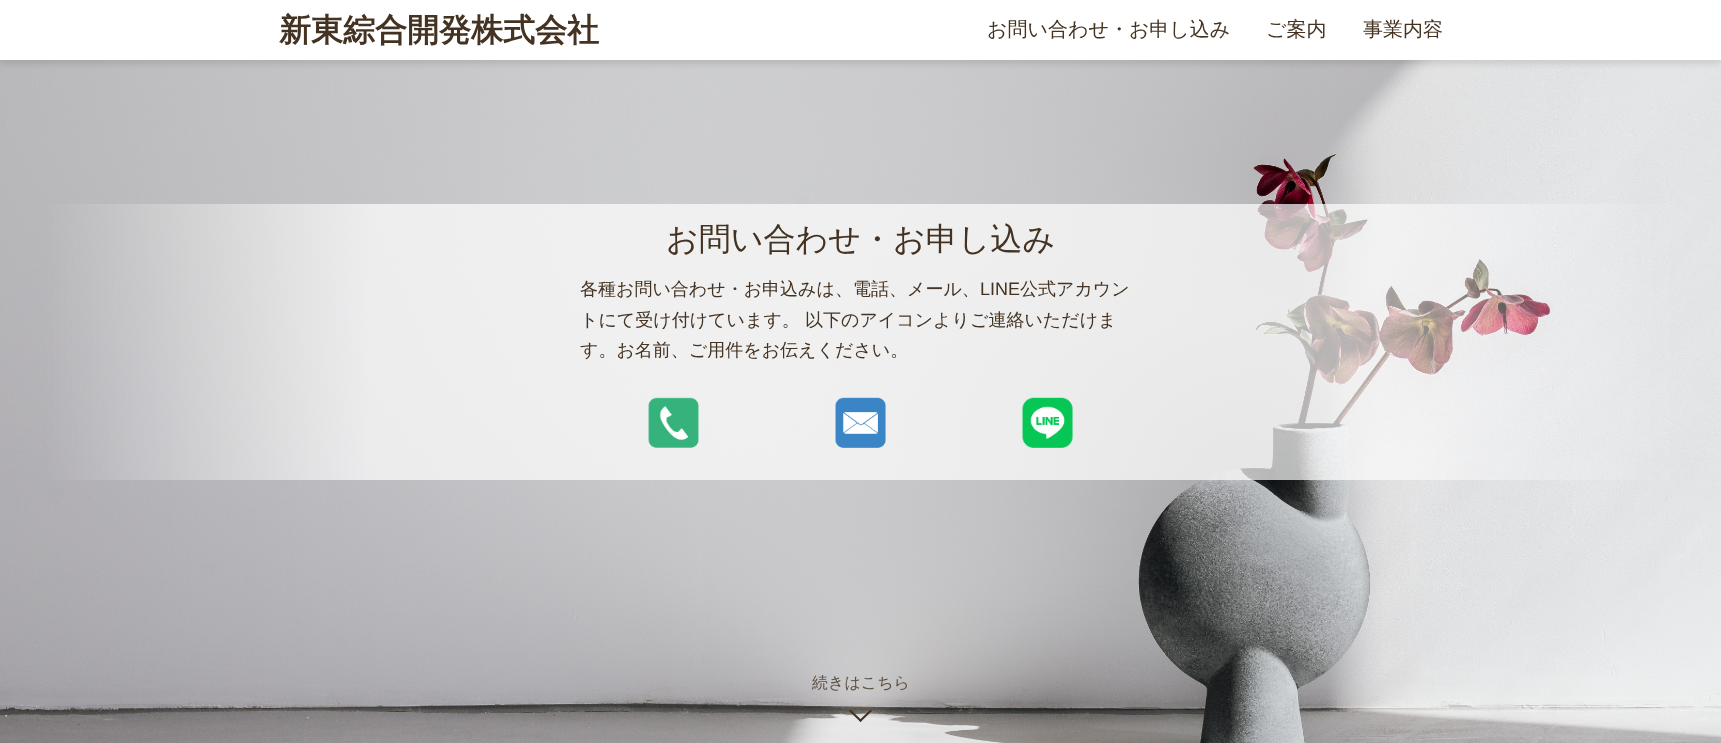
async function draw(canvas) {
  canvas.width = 1721
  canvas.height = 743
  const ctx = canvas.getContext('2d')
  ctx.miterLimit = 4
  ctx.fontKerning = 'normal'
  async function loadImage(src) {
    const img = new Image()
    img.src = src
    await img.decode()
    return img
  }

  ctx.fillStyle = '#fff'
  ctx.fillRect(0, 0, 1721, 743)
  ctx.drawImage(await loadImage('image0.png'), 0, 60, 1721, 683)
  ctx.fillStyle = '#0000001a'
  ctx.filter = 'blur(3px)'
  ctx.beginPath()
  ctx.rect(0, 4, 1721, 60)
  ctx.fill()
  ctx.filter = 'none'
  ctx.fillStyle = '#fff'
  ctx.fillRect(0, 0, 1721, 60)
  ctx.font = 'bold 32px WenQuanYi Zen Hei'
  ctx.fillStyle = '#432'
  ctx.fillText('新東綜合開発株式会社', 279, 41)
  ctx.font = '500 20px WenQuanYi Zen Hei'
  ctx.fillText('お問い合わせ・お申し込み', 987, 36)
  ctx.fillText('ご案内', 1266, 36)
  ctx.fillText('事業内容', 1363, 36)
  ctx.font = '500 32px WenQuanYi Zen Hei'
  ctx.fillText('お問い合わせ・お申し込み', 666, 250)
  ctx.font = '500 18px WenQuanYi Zen Hei'
  ctx.fillText('各種お問い合わせ・お申込みは、電話、メール、', 580, 295)
  ctx.font = '18px Liberation Sans'
  ctx.fillText('LINE', 980, 295)
  ctx.font = '500 18px WenQuanYi Zen Hei'
  ctx.fillText('公式アカウン', 1020, 295)
  ctx.fillText('トにて受け付けています。', 580, 326)
  ctx.fillText('以下のアイコンよりご連絡いただけま', 805, 326)
  ctx.fillText('す。お名前、ご用件をお伝えください。', 580, 356)
  ctx.drawImage(await loadImage('image1.png'), 648, 397, 51, 51)
  ctx.drawImage(await loadImage('image2.png'), 835, 397, 51, 51)
  ctx.drawImage(await loadImage('image3.png'), 1022, 397, 51, 51)
  ctx.font = '500 16px WenQuanYi Zen Hei'
  ctx.fillStyle = '#5e5043'
  ctx.fillText('続きはこちら', 812, 688)
  ctx.fillStyle = '#432'
  ctx.beginPath()
  ctx.moveTo(859, 720.5)
  ctx.lineTo(870.5, 709.5)
  ctx.lineTo(872, 711)
  ctx.lineTo(860.5, 722)
  ctx.closePath()
  ctx.fill()
  ctx.beginPath()
  ctx.moveTo(849, 711)
  ctx.lineTo(850.5, 709.5)
  ctx.lineTo(862, 720.5)
  ctx.lineTo(860.5, 722)
  ctx.closePath()
  ctx.fill()
}

draw(document.querySelector('canvas'))
